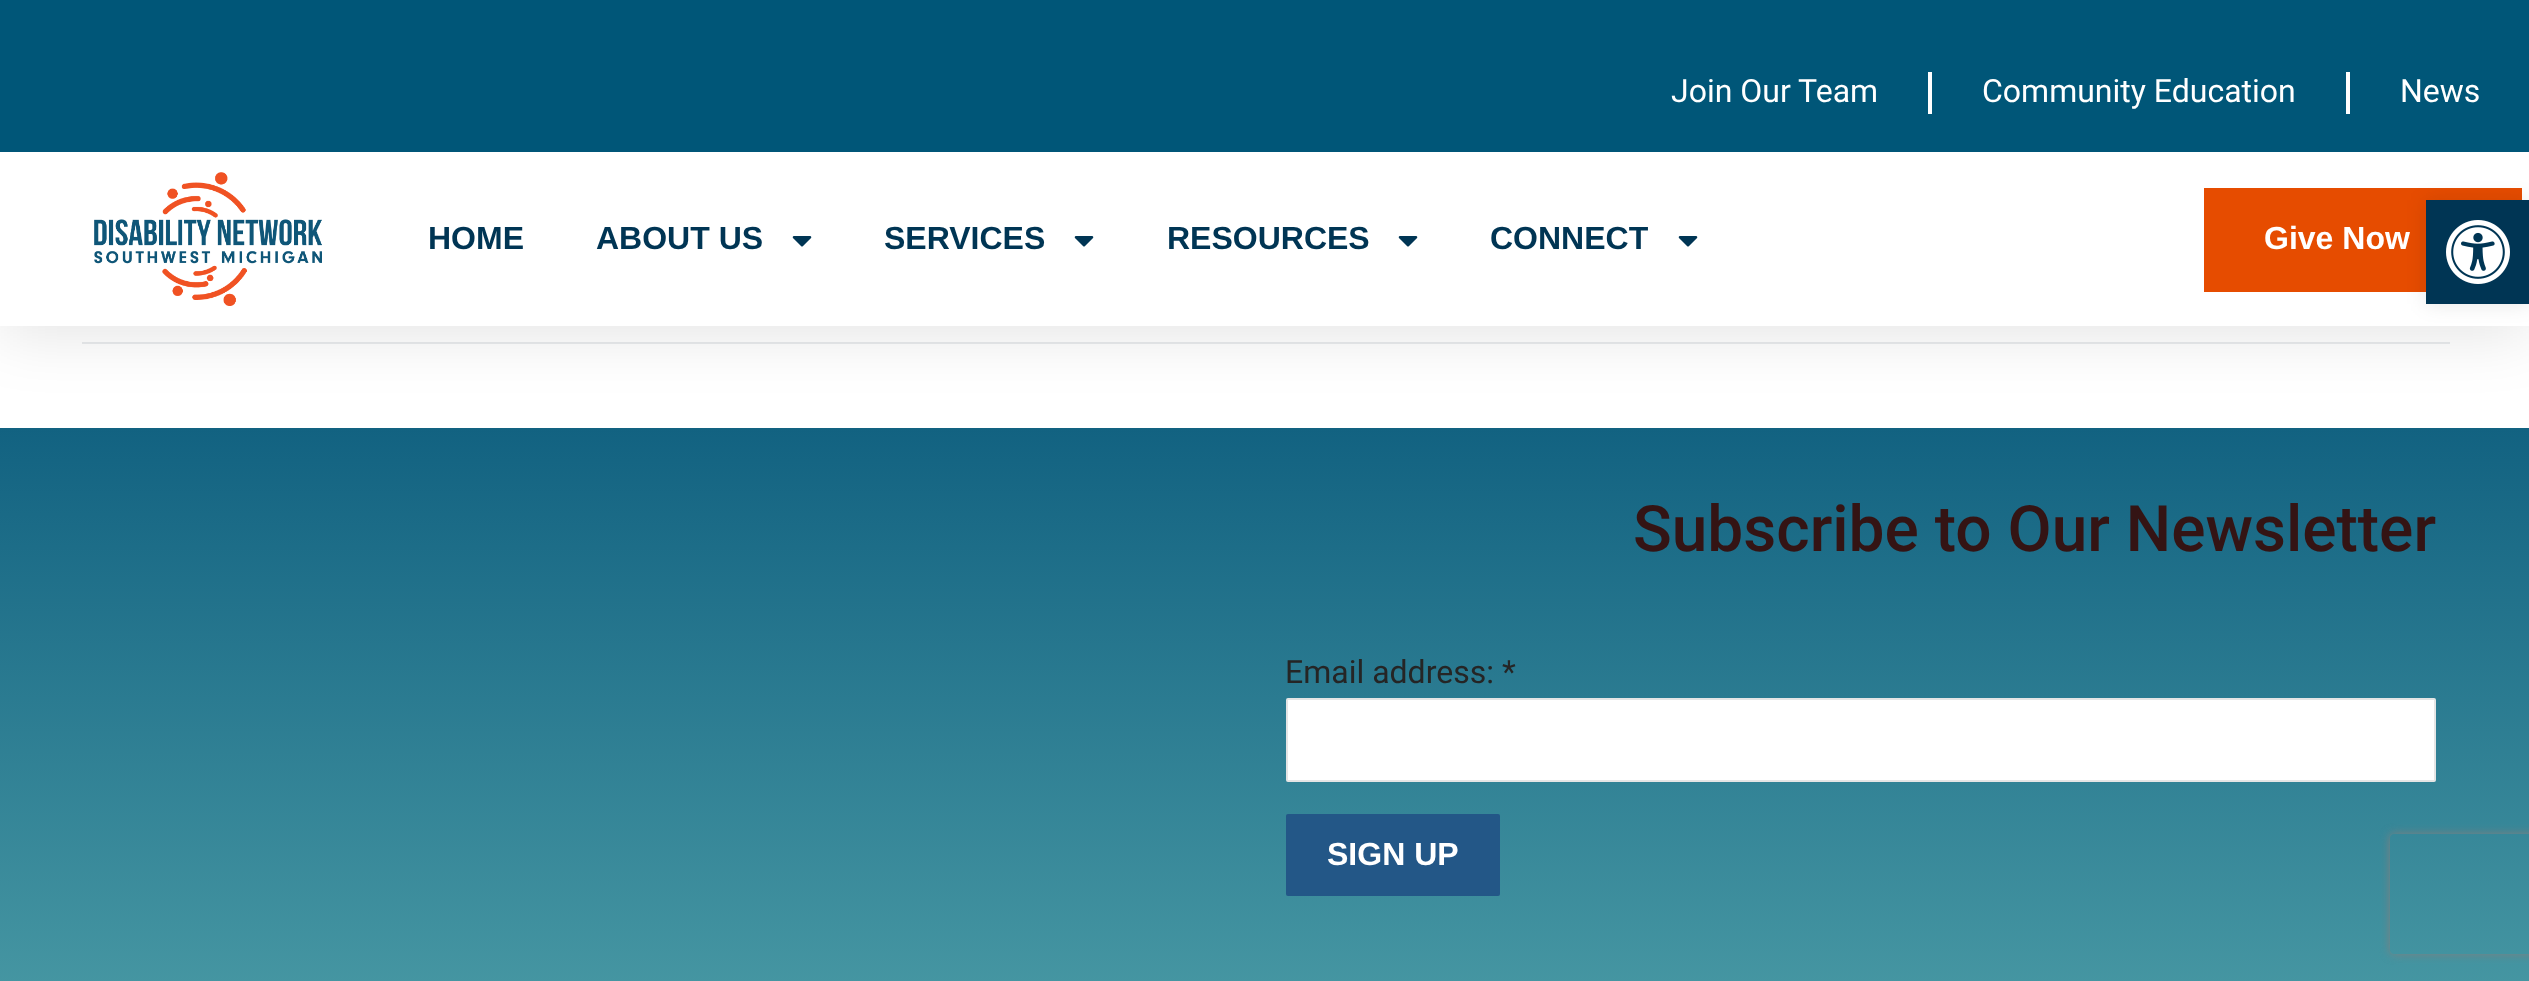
async function draw(canvas) {
  canvas.width = 2529
  canvas.height = 981
  const ctx = canvas.getContext('2d')
  ctx.miterLimit = 4
  ctx.fontKerning = 'normal'
  async function loadImage(src) {
    const img = new Image()
    img.src = src
    await img.decode()
    return img
  }
  let gradient

  ctx.fillStyle = '#fff'
  ctx.fillRect(0, 0, 2529, 981)
  ctx.fillStyle = '#eaecee'
  ctx.fillRect(82, 342, 2368, 2)
  ctx.fillStyle = '#0000001a'
  ctx.filter = 'blur(30px)'
  ctx.beginPath()
  ctx.rect(0, 10, 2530, 326)
  ctx.fill()
  ctx.filter = 'none'
  ctx.fillStyle = '#005678'
  ctx.fillRect(0, 0, 2529, 152)
  ctx.font = '32px Roboto'
  ctx.fillStyle = '#fff'
  ctx.fillText('Join Our Team', 1671, 102)
  ctx.fillRect(1928, 72, 4, 42)
  ctx.fillText('Community Education', 1982, 102)
  ctx.fillRect(2346, 72, 4, 42)
  ctx.fillText('News', 2400, 102)
  ctx.fillRect(0, 152, 2529, 174)
  ctx.drawImage(await loadImage('image0.png'), 94, 172, 228, 134)
  ctx.font = 'bold 32px Liberation Sans'
  ctx.fillStyle = '#003554'
  ctx.fillText('HOME', 428, 249)
  ctx.fillText('ABOUT US', 596, 249)
  ctx.drawImage(await loadImage('image1.png'), 792, 236, 20, 11)
  ctx.fillText('SERVICES', 884, 249)
  ctx.drawImage(await loadImage('image1.png'), 1074, 236, 20, 11)
  ctx.fillText('RESOURCES', 1167, 249)
  ctx.drawImage(await loadImage('image1.png'), 1398, 236, 20, 11)
  ctx.fillText('CONNECT', 1490, 249)
  ctx.drawImage(await loadImage('image1.png'), 1678, 236, 20, 11)
  ctx.fillStyle = '#e64c00'
  ctx.fillRect(2204, 188, 318, 104)
  ctx.fillStyle = '#fff'
  ctx.fillText('Give Now', 2264, 249)
  gradient = ctx.createLinearGradient(1265, 428, 1265, 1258)
  gradient.addColorStop(0, '#126281')
  gradient.addColorStop(1, '#5eafb2')
  ctx.fillStyle = gradient
  ctx.fillRect(0, 428, 2529, 553)
  ctx.font = '500 64px Roboto'
  ctx.fillStyle = '#341414'
  ctx.fillText('Subscribe to Our Newsletter', 1633, 551)
  ctx.font = '32px Roboto'
  ctx.fillStyle = '#252525'
  ctx.fillText('Email address: *', 1285, 683)
  ctx.fillStyle = '#fff'
  ctx.beginPath()
  ctx.roundRect(1287, 699, 1148, 82, 1)
  ctx.fill()
  ctx.strokeStyle = '#e5e5e5'
  ctx.lineWidth = 2
  ctx.stroke()
  ctx.fillStyle = '#235787'
  ctx.beginPath()
  ctx.roundRect(1286, 814, 214, 82, 2)
  ctx.fill()
  ctx.font = 'bold 32px Liberation Sans'
  ctx.fillStyle = '#fff'
  ctx.fillText('SIGN UP', 1327, 865)
  ctx.fillStyle = '#0000001a'
  ctx.filter = 'blur(10px)'
  ctx.beginPath()
  ctx.rect(2426, 200, 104, 104)
  ctx.fill()
  ctx.filter = 'none'
  ctx.fillStyle = '#003554'
  ctx.fillRect(2426, 200, 103, 104)
  ctx.drawImage(await loadImage('image2.png'), 2446, 220, 64, 64)
  ctx.save()
  ctx.beginPath()
  ctx.moveTo(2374, 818)
  ctx.lineTo(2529, 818)
  ctx.lineTo(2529, 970)
  ctx.lineTo(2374, 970)
  ctx.closePath()
  ctx.moveTo(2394, 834)
  ctx.lineTo(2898, 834)
  ctx.bezierCurveTo(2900, 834, 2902, 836, 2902, 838)
  ctx.lineTo(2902, 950)
  ctx.bezierCurveTo(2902, 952, 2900, 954, 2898, 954)
  ctx.lineTo(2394, 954)
  ctx.bezierCurveTo(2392, 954, 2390, 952, 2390, 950)
  ctx.lineTo(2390, 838)
  ctx.bezierCurveTo(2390, 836, 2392, 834, 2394, 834)
  ctx.closePath()
  ctx.clip('evenodd')
  ctx.fillStyle = '#808080'
  ctx.filter = 'blur(5px)'
  ctx.beginPath()
  ctx.roundRect(2390, 834, 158, 120, 4)
  ctx.fill()
  ctx.filter = 'none'
  ctx.restore()
}

draw(document.querySelector('canvas'))
